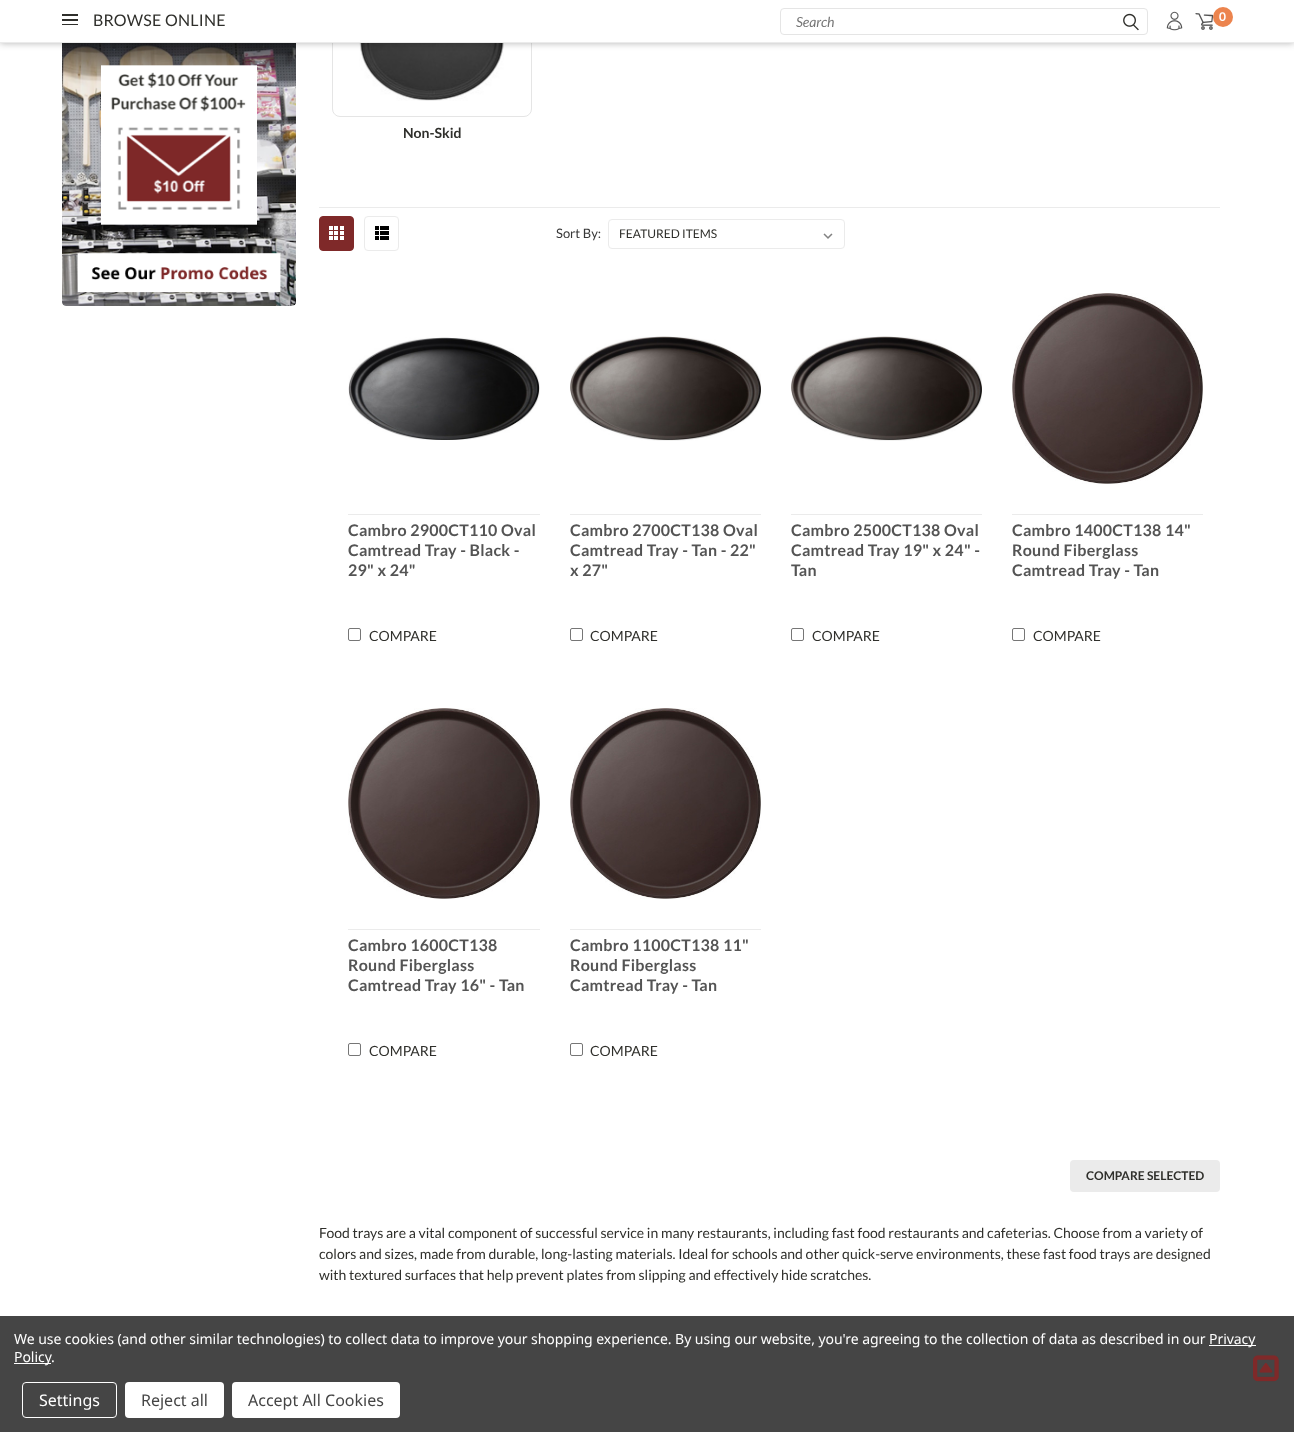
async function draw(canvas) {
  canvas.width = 1294
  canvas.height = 1432
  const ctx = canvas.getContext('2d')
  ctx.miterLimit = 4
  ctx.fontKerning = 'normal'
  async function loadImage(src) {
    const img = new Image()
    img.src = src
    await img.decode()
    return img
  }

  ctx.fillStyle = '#fff'
  ctx.fillRect(0, 0, 1294, 1432)
  ctx.drawImage(await loadImage('image3.png'), 62, 43, 234, 263)
  ctx.drawImage(await loadImage('image4.png'), 359, 43, 145, 58)
  ctx.beginPath()
  ctx.roundRect(332.5, -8.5, 199, 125, 7.5)
  ctx.strokeStyle = '#e5e5e5'
  ctx.stroke()
  ctx.fillStyle = '#0000004d'
  ctx.filter = 'blur(3.5px)'
  ctx.beginPath()
  ctx.rect(0, 0, 1294, 43)
  ctx.fill()
  ctx.filter = 'none'
  ctx.fillStyle = '#fff'
  ctx.fillRect(0, 0, 1294, 42)
  ctx.fillStyle = '#ebebeb'
  ctx.fillRect(0, 42, 1294, 1)
  ctx.fillStyle = '#2f2f2b'
  ctx.fillRect(62, 14, 16, 2)
  ctx.fillRect(62, 19, 16, 2)
  ctx.fillRect(62, 24, 16, 1)
  ctx.letterSpacing = '0.25px'
  ctx.font = '16px Lato'
  ctx.fillText('BROWSE ONLINE', 93, 26)
  ctx.beginPath()
  ctx.roundRect(780.5, 8.5, 367, 26, 3.5)
  ctx.stroke()
  ctx.letterSpacing = '0px'
  ctx.font = 'italic 14px Lato'
  ctx.fillStyle = '#767676'
  ctx.fillText('Search', 796, 27)
  ctx.drawImage(await loadImage('image0.png'), 1123, 13, 16, 18)
  ctx.drawImage(await loadImage('image1.png'), 1166, 11, 17, 20)
  ctx.drawImage(await loadImage('image2.png'), 1195, 13, 19, 17)
  ctx.fillStyle = '#ec844e'
  ctx.beginPath()
  ctx.arc(1223, 17, 10, 0, 2 * Math.PI)
  ctx.fill()
  ctx.font = 'bold 12px Lato'
  ctx.fillStyle = '#fff'
  ctx.fillText('0', 1219, 21)
  ctx.fillStyle = '#ebebeb'
  ctx.fillRect(319, 207, 901, 1)
  ctx.font = 'bold 14px Lato'
  ctx.fillStyle = '#2f2f2b'
  ctx.fillText('Non-Skid', 403, 138)
  ctx.fillStyle = '#7f2929'
  ctx.beginPath()
  ctx.roundRect(319.5, 216.5, 34, 34, 3.5)
  ctx.fill()
  ctx.strokeStyle = '#7f2929'
  ctx.stroke()
  ctx.drawImage(await loadImage('image5.png'), 329, 226, 15, 14)
  ctx.beginPath()
  ctx.roundRect(364.5, 216.5, 34, 34, 3.5)
  ctx.strokeStyle = '#ebebeb'
  ctx.stroke()
  ctx.drawImage(await loadImage('image6.png'), 375, 226, 14, 14)
  ctx.font = '13px Lato'
  ctx.fillStyle = '#393939'
  ctx.fillText('Sort By:', 556, 238)
  ctx.drawImage(await loadImage('image7.png'), 823, 233, 10, 6)
  ctx.beginPath()
  ctx.roundRect(608.5, 219.5, 236, 29, 3.5)
  ctx.stroke()
  ctx.font = '12px Lato'
  ctx.fillStyle = '#2f2f2b'
  ctx.fillText('FEATURED ITEMS', 619, 238)
  ctx.drawImage(await loadImage('image8.png'), 348, 337, 192, 103)
  ctx.fillStyle = '#ebebeb'
  ctx.fillRect(348, 514, 192, 1)
  ctx.letterSpacing = '0.25px'
  ctx.font = 'bold 16px Lato'
  ctx.fillStyle = '#545454'
  ctx.fillText('Cambro 2900CT110 Oval', 348, 536)
  ctx.fillText('Camtread Tray - Black -', 348, 556)
  ctx.fillText('29" x 24"', 348, 576)
  ctx.beginPath()
  ctx.roundRect(348.5, 628.5, 12, 12, 1.5)
  ctx.strokeStyle = '#767676'
  ctx.stroke()
  ctx.letterSpacing = '0px'
  ctx.font = '14px Lato'
  ctx.fillStyle = '#2f2f2b'
  ctx.fillText('COMPARE', 369, 641)
  ctx.drawImage(await loadImage('image9.png'), 570, 336, 191, 105)
  ctx.fillStyle = '#ebebeb'
  ctx.fillRect(570, 514, 191, 1)
  ctx.letterSpacing = '0.25px'
  ctx.font = 'bold 16px Lato'
  ctx.fillStyle = '#545454'
  ctx.fillText('Cambro 2700CT138 Oval', 570, 536)
  ctx.fillText('Camtread Tray - Tan - 22"', 570, 556)
  ctx.fillText('x 27"', 570, 576)
  ctx.beginPath()
  ctx.roundRect(570.5, 628.5, 12, 12, 1.5)
  ctx.stroke()
  ctx.letterSpacing = '0px'
  ctx.font = '14px Lato'
  ctx.fillStyle = '#2f2f2b'
  ctx.fillText('COMPARE', 590, 641)
  ctx.drawImage(await loadImage('image10.png'), 791, 336, 191, 105)
  ctx.fillStyle = '#ebebeb'
  ctx.fillRect(791, 514, 191, 1)
  ctx.letterSpacing = '0.25px'
  ctx.font = 'bold 16px Lato'
  ctx.fillStyle = '#545454'
  ctx.fillText('Cambro 2500CT138 Oval', 791, 536)
  ctx.fillText('Camtread Tray 19" x 24" -', 791, 556)
  ctx.fillText('Tan', 791, 576)
  ctx.beginPath()
  ctx.roundRect(791.5, 628.5, 12, 12, 1.5)
  ctx.stroke()
  ctx.letterSpacing = '0px'
  ctx.font = '14px Lato'
  ctx.fillStyle = '#2f2f2b'
  ctx.fillText('COMPARE', 812, 641)
  ctx.drawImage(await loadImage('image11.png'), 1012, 293, 191, 191)
  ctx.fillStyle = '#ebebeb'
  ctx.fillRect(1012, 514, 191, 1)
  ctx.letterSpacing = '0.25px'
  ctx.font = 'bold 16px Lato'
  ctx.fillStyle = '#545454'
  ctx.fillText('Cambro 1400CT138 14"', 1012, 536)
  ctx.fillText('Round Fiberglass', 1012, 556)
  ctx.fillText('Camtread Tray - Tan', 1012, 576)
  ctx.beginPath()
  ctx.roundRect(1012.5, 628.5, 12, 12, 1.5)
  ctx.stroke()
  ctx.letterSpacing = '0px'
  ctx.font = '14px Lato'
  ctx.fillStyle = '#2f2f2b'
  ctx.fillText('COMPARE', 1033, 641)
  ctx.drawImage(await loadImage('image12.png'), 348, 708, 192, 191)
  ctx.fillStyle = '#ebebeb'
  ctx.fillRect(348, 929, 192, 1)
  ctx.letterSpacing = '0.25px'
  ctx.font = 'bold 16px Lato'
  ctx.fillStyle = '#545454'
  ctx.fillText('Cambro 1600CT138', 348, 951)
  ctx.fillText('Round Fiberglass', 348, 971)
  ctx.fillText('Camtread Tray 16" - Tan', 348, 991)
  ctx.beginPath()
  ctx.roundRect(348.5, 1043.5, 12, 12, 1.5)
  ctx.stroke()
  ctx.letterSpacing = '0px'
  ctx.font = '14px Lato'
  ctx.fillStyle = '#2f2f2b'
  ctx.fillText('COMPARE', 369, 1056)
  ctx.drawImage(await loadImage('image11.png'), 570, 708, 191, 191)
  ctx.fillStyle = '#ebebeb'
  ctx.fillRect(570, 929, 191, 1)
  ctx.letterSpacing = '0.25px'
  ctx.font = 'bold 16px Lato'
  ctx.fillStyle = '#545454'
  ctx.fillText('Cambro 1100CT138 11"', 570, 951)
  ctx.fillText('Round Fiberglass', 570, 971)
  ctx.fillText('Camtread Tray - Tan', 570, 991)
  ctx.beginPath()
  ctx.roundRect(570.5, 1043.5, 12, 12, 1.5)
  ctx.stroke()
  ctx.letterSpacing = '0px'
  ctx.font = '14px Lato'
  ctx.fillStyle = '#2f2f2b'
  ctx.fillText('COMPARE', 590, 1056)
  ctx.fillStyle = '#ebebeb'
  ctx.beginPath()
  ctx.roundRect(1070, 1160, 150, 32, 4)
  ctx.fill()
  ctx.font = 'bold 12px Lato'
  ctx.fillStyle = '#2f2f2b'
  ctx.fillText('COMPARE SELECTED', 1086, 1180)
  ctx.font = '14px Lato'
  ctx.fillText('Food trays are a vital component of successful service in many restaurants, including fast food restaurants and cafeterias. Choose from a variety of', 319, 1238)
  ctx.fillText('colors and sizes, made from durable, long-lasting materials. Ideal for schools and other quick-serve environments, these fast food trays are designed', 319, 1259)
  ctx.fillText('with textured surfaces that help prevent plates from slipping and effectively hide scratches.', 319, 1280)
  ctx.fillStyle = '#454545'
  ctx.fillRect(0, 1316, 1294, 116)
  ctx.letterSpacing = '-0.05px'
  ctx.font = '14px Noto Sans'
  ctx.fillStyle = '#fff'
  ctx.fillText('We use cookies (and other similar technologies) to collect data to improve your shopping experience. By using our website, you\'re agreeing to the collection of data as described in our', 14, 1344)
  ctx.fillRect(1209, 1345, 47, 1)
  ctx.fillText('Privacy', 1209, 1344)
  ctx.fillRect(14, 1363, 37, 1)
  ctx.fillText('Policy', 14, 1362)
  ctx.fillText('.', 51, 1362)
  ctx.beginPath()
  ctx.roundRect(22.5, 1382.5, 94, 35, 3.5)
  ctx.strokeStyle = '#fff'
  ctx.stroke()
  ctx.letterSpacing = '0px'
  ctx.font = '16px Noto Sans'
  ctx.fillText('Settings', 39, 1406)
  ctx.beginPath()
  ctx.roundRect(125, 1382, 99, 36, 4)
  ctx.fill()
  ctx.fillStyle = '#454545'
  ctx.fillText('Reject all', 141, 1406)
  ctx.fillStyle = '#fff'
  ctx.beginPath()
  ctx.roundRect(232, 1382, 168, 36, 4)
  ctx.fill()
  ctx.fillStyle = '#454545'
  ctx.fillText('Accept All Cookies', 248, 1406)
  ctx.drawImage(await loadImage('image13.png'), 1253, 1355, 26, 27)
}

draw(document.querySelector('canvas'))
